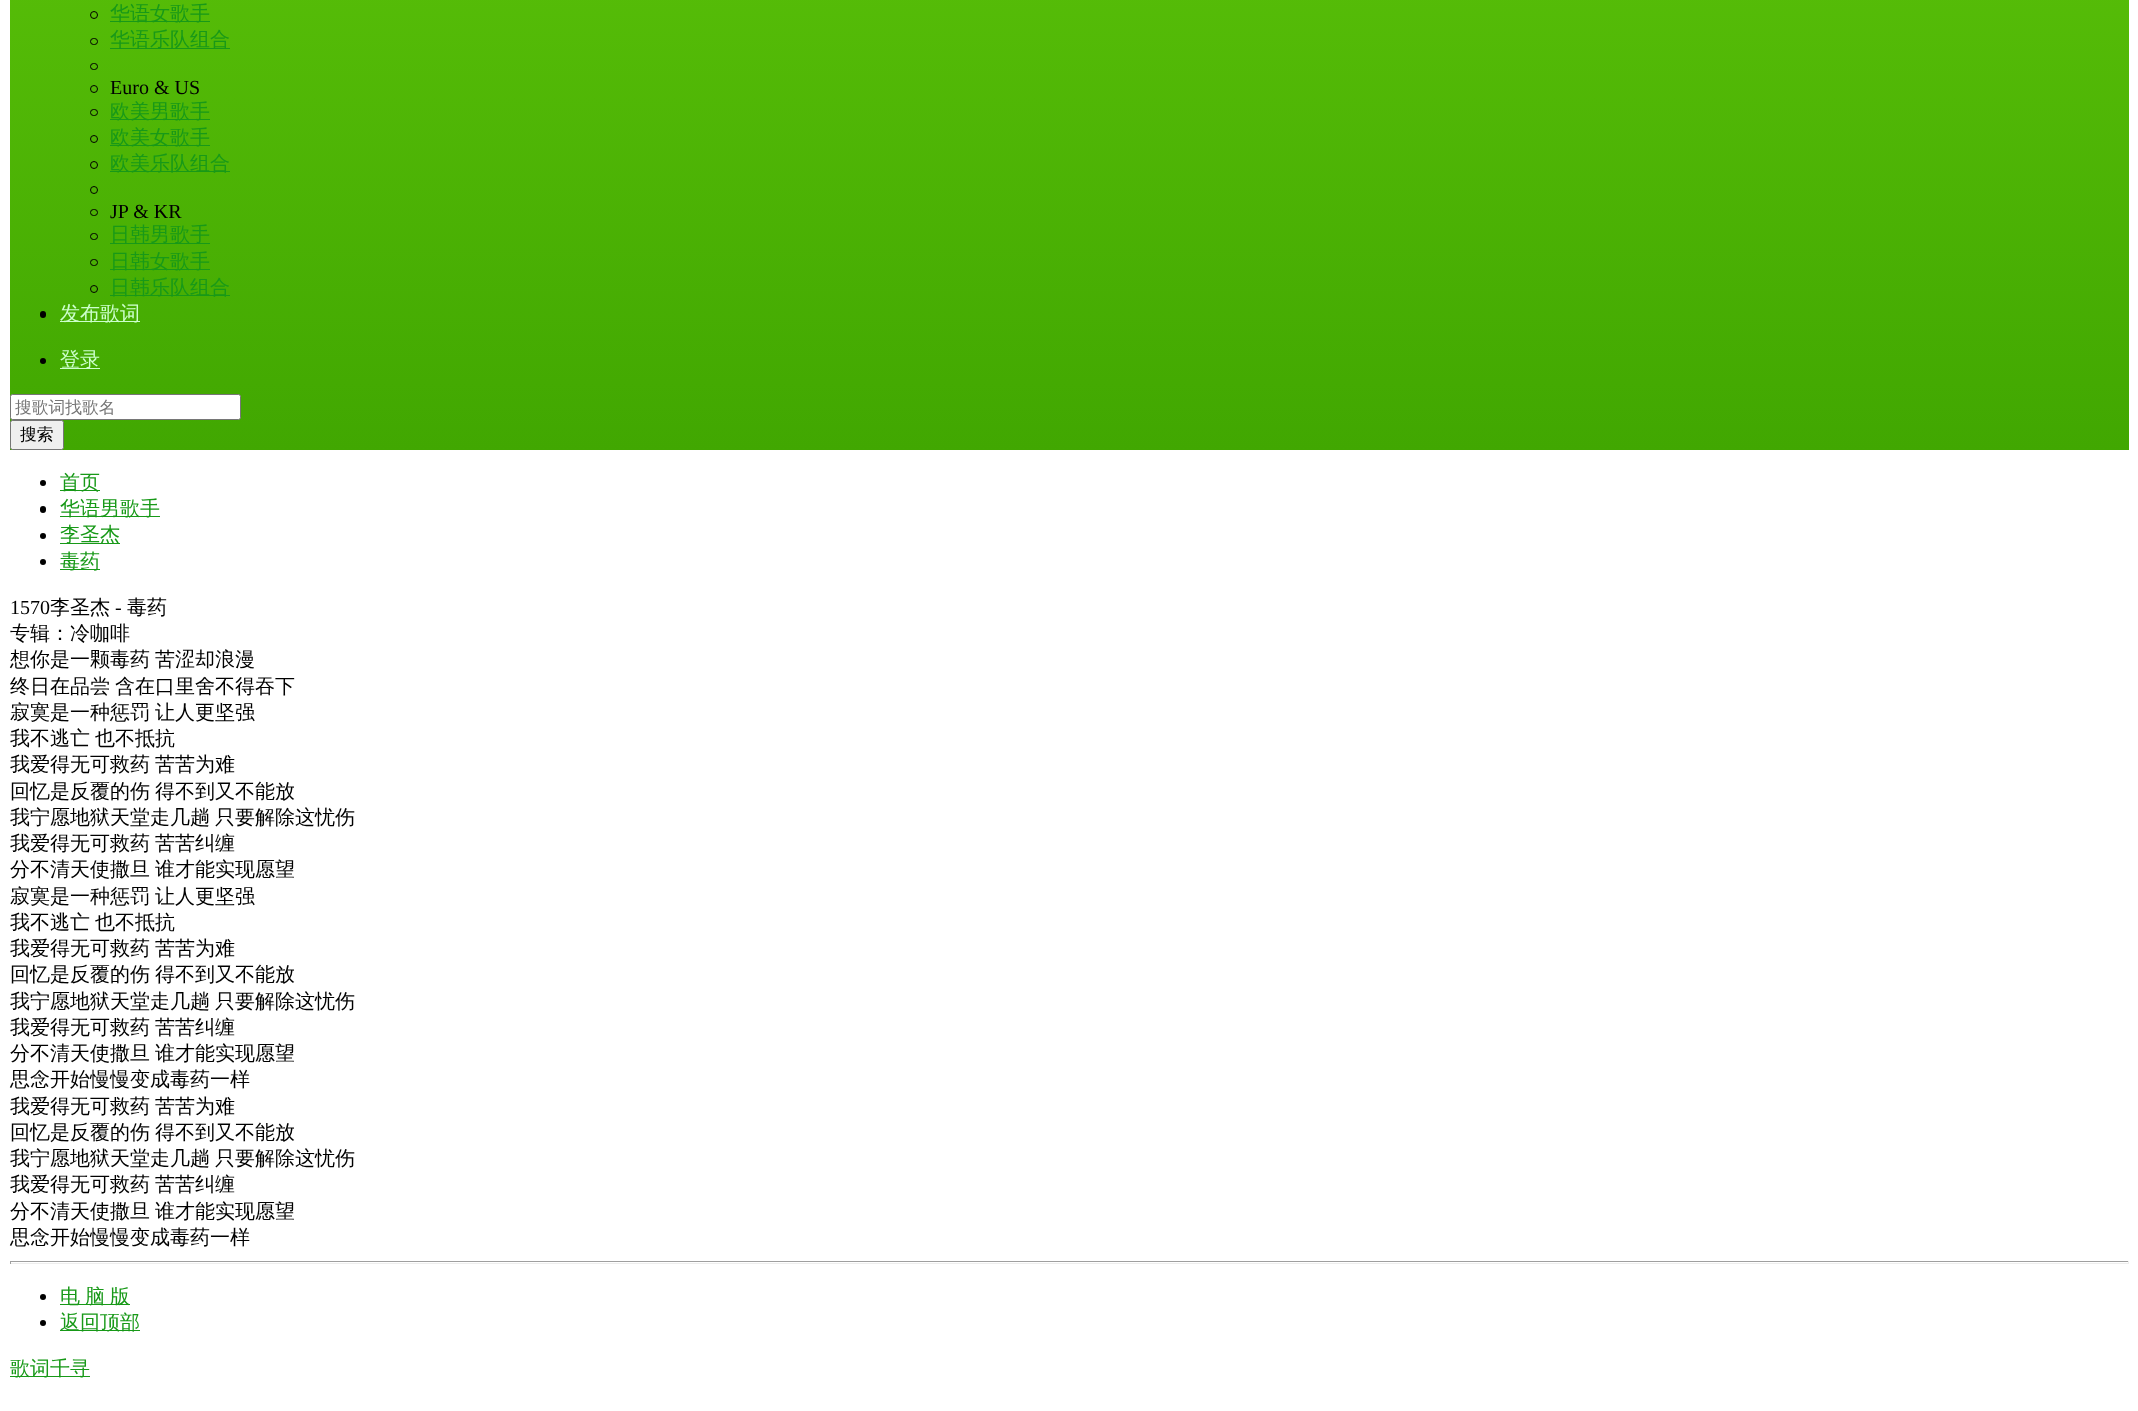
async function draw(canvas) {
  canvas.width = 2138
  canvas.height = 1411
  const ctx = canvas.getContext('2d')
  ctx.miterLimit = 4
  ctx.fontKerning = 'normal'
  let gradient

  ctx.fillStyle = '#fff'
  ctx.fillRect(0, 0, 2138, 1411)
  gradient = ctx.createLinearGradient(10, -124, 10, 450)
  gradient.addColorStop(0, '#5ac109')
  gradient.addColorStop(1, '#41a701')
  ctx.fillStyle = gradient
  ctx.fillRect(10, 0, 2119, 450)
  ctx.beginPath()
  ctx.arc(94, 15, 3.5, 0, 2 * Math.PI)
  ctx.strokeStyle = '#000'
  ctx.stroke()
  ctx.fillStyle = '#189918'
  ctx.fillRect(110, 21, 100, 1)
  ctx.font = '500 20px WenQuanYi Zen Hei'
  ctx.fillText('华语女歌手', 110, 20)
  ctx.beginPath()
  ctx.roundRect(90.5, 38.5, 7, 6, 3)
  ctx.stroke()
  ctx.fillRect(110, 48, 120, 1)
  ctx.fillText('华语乐队组合', 110, 46)
  ctx.beginPath()
  ctx.roundRect(90.5, 63.5, 7, 6, 3)
  ctx.stroke()
  ctx.beginPath()
  ctx.arc(94, 89, 3.5, 0, 2 * Math.PI)
  ctx.stroke()
  ctx.font = '20px Liberation Serif'
  ctx.fillStyle = '#000'
  ctx.fillText('Euro & US', 110, 94)
  ctx.beginPath()
  ctx.roundRect(90.5, 109.5, 7, 6, 3)
  ctx.stroke()
  ctx.fillStyle = '#189918'
  ctx.fillRect(110, 119, 100, 1)
  ctx.font = '500 20px WenQuanYi Zen Hei'
  ctx.fillText('欧美男歌手', 110, 118)
  ctx.beginPath()
  ctx.arc(94, 139, 3.5, 0, 2 * Math.PI)
  ctx.stroke()
  ctx.fillRect(110, 145, 100, 1)
  ctx.fillText('欧美女歌手', 110, 144)
  ctx.beginPath()
  ctx.arc(94, 165, 3.5, 0, 2 * Math.PI)
  ctx.stroke()
  ctx.fillRect(110, 171, 120, 1)
  ctx.fillText('欧美乐队组合', 110, 170)
  ctx.beginPath()
  ctx.arc(94, 190, 3.5, 0, 2 * Math.PI)
  ctx.stroke()
  ctx.beginPath()
  ctx.roundRect(90.5, 209.5, 7, 6, 3)
  ctx.stroke()
  ctx.font = '20px Liberation Serif'
  ctx.fillStyle = '#000'
  ctx.fillText('JP & KR', 110, 218)
  ctx.beginPath()
  ctx.roundRect(90.5, 233.5, 7, 6, 3)
  ctx.stroke()
  ctx.fillStyle = '#189918'
  ctx.fillRect(110, 243, 100, 1)
  ctx.font = '500 20px WenQuanYi Zen Hei'
  ctx.fillText('日韩男歌手', 110, 241)
  ctx.beginPath()
  ctx.roundRect(90.5, 259.5, 7, 6, 3)
  ctx.stroke()
  ctx.fillRect(110, 269, 100, 1)
  ctx.fillText('日韩女歌手', 110, 268)
  ctx.beginPath()
  ctx.arc(94, 289, 3.5, 0, 2 * Math.PI)
  ctx.stroke()
  ctx.fillRect(110, 295, 120, 1)
  ctx.fillText('日韩乐队组合', 110, 294)
  ctx.fillStyle = '#000'
  ctx.beginPath()
  ctx.roundRect(40, 311, 6, 7, 3)
  ctx.fill()
  ctx.fillStyle = '#cfc'
  ctx.fillRect(60, 321, 80, 1)
  ctx.fillText('发布歌词', 60, 320)
  ctx.fillStyle = '#000'
  ctx.beginPath()
  ctx.arc(43, 361, 3, 0, 2 * Math.PI)
  ctx.fill()
  ctx.fillStyle = '#cfc'
  ctx.fillRect(60, 368, 40, 1)
  ctx.fillText('登录', 60, 366)
  ctx.fillStyle = '#fff'
  ctx.beginPath()
  ctx.roundRect(10.5, 394.5, 230, 25, 2)
  ctx.fill()
  ctx.strokeStyle = '#767676'
  ctx.stroke()
  ctx.font = '500 16.75px WenQuanYi Zen Hei'
  ctx.fillStyle = '#757575'
  ctx.fillText('搜歌词找歌名', 15, 413)
  ctx.fillStyle = '#efefef'
  ctx.beginPath()
  ctx.roundRect(10.5, 420.5, 53, 29, 2)
  ctx.fill()
  ctx.stroke()
  ctx.fillStyle = '#000'
  ctx.fillText('搜索', 20, 440)
  ctx.beginPath()
  ctx.arc(43, 483, 3, 0, 2 * Math.PI)
  ctx.fill()
  ctx.fillStyle = '#189918'
  ctx.fillRect(60, 490, 40, 1)
  ctx.font = '500 20px WenQuanYi Zen Hei'
  ctx.fillText('首页', 60, 489)
  ctx.fillStyle = '#000'
  ctx.beginPath()
  ctx.roundRect(40, 506, 6, 7, 3)
  ctx.fill()
  ctx.fillStyle = '#189918'
  ctx.fillRect(60, 516, 100, 1)
  ctx.fillText('华语男歌手', 60, 515)
  ctx.fillStyle = '#000'
  ctx.beginPath()
  ctx.arc(43, 536, 3, 0, 2 * Math.PI)
  ctx.fill()
  ctx.fillStyle = '#189918'
  ctx.fillRect(60, 543, 60, 1)
  ctx.fillText('李圣杰', 60, 541)
  ctx.fillStyle = '#000'
  ctx.beginPath()
  ctx.arc(43, 562, 3, 0, 2 * Math.PI)
  ctx.fill()
  ctx.fillStyle = '#189918'
  ctx.fillRect(60, 569, 40, 1)
  ctx.fillText('毒药', 60, 568)
  ctx.font = '20px Liberation Serif'
  ctx.fillStyle = '#000'
  ctx.fillText('1570', 10, 614)
  ctx.font = '500 20px WenQuanYi Zen Hei'
  ctx.fillText('李圣杰', 50, 614)
  ctx.font = '20px Liberation Serif'
  ctx.fillText('-', 115, 614)
  ctx.font = '500 20px WenQuanYi Zen Hei'
  ctx.fillText('毒药', 127, 614)
  ctx.fillText('专辑：冷咖啡', 10, 640)
  ctx.wordSpacing = '-1px'
  ctx.fillText('想你是一颗毒药 苦涩却浪漫', 10, 666)
  ctx.fillText('终日在品尝 含在口里舍不得吞下', 10, 693)
  ctx.fillText('寂寞是一种惩罚 让人更坚强', 10, 719)
  ctx.fillText('我不逃亡 也不抵抗', 10, 745)
  ctx.fillText('我爱得无可救药 苦苦为难', 10, 771)
  ctx.fillText('回忆是反覆的伤 得不到又不能放', 10, 798)
  ctx.fillText('我宁愿地狱天堂走几趟 只要解除这忧伤', 10, 824)
  ctx.fillText('我爱得无可救药 苦苦纠缠', 10, 850)
  ctx.fillText('分不清天使撒旦 谁才能实现愿望', 10, 876)
  ctx.fillText('寂寞是一种惩罚 让人更坚强', 10, 903)
  ctx.fillText('我不逃亡 也不抵抗', 10, 929)
  ctx.fillText('我爱得无可救药 苦苦为难', 10, 955)
  ctx.fillText('回忆是反覆的伤 得不到又不能放', 10, 981)
  ctx.fillText('我宁愿地狱天堂走几趟 只要解除这忧伤', 10, 1008)
  ctx.fillText('我爱得无可救药 苦苦纠缠', 10, 1034)
  ctx.fillText('分不清天使撒旦 谁才能实现愿望', 10, 1060)
  ctx.wordSpacing = '0px'
  ctx.fillText('思念开始慢慢变成毒药一样', 10, 1086)
  ctx.wordSpacing = '-1px'
  ctx.fillText('我爱得无可救药 苦苦为难', 10, 1113)
  ctx.fillText('回忆是反覆的伤 得不到又不能放', 10, 1139)
  ctx.fillText('我宁愿地狱天堂走几趟 只要解除这忧伤', 10, 1165)
  ctx.fillText('我爱得无可救药 苦苦纠缠', 10, 1191)
  ctx.fillText('分不清天使撒旦 谁才能实现愿望', 10, 1218)
  ctx.wordSpacing = '0px'
  ctx.fillText('思念开始慢慢变成毒药一样', 10, 1244)
  ctx.fillStyle = '#9f9f9f'
  ctx.fillRect(10, 1261, 2119, 1)
  ctx.fillStyle = '#eee'
  ctx.fillRect(2128, 1261, 1, 3)
  ctx.fillRect(10, 1263, 2119, 1)
  ctx.fillStyle = '#9f9f9f'
  ctx.fillRect(10, 1261, 1, 3)
  ctx.fillStyle = '#000'
  ctx.beginPath()
  ctx.arc(43, 1297, 3, 0, 2 * Math.PI)
  ctx.fill()
  ctx.fillStyle = '#189918'
  ctx.fillRect(60, 1304, 70, 1)
  ctx.wordSpacing = '-1px'
  ctx.fillText('电 脑 版', 60, 1303)
  ctx.fillStyle = '#000'
  ctx.beginPath()
  ctx.arc(43, 1323, 3, 0, 2 * Math.PI)
  ctx.fill()
  ctx.fillStyle = '#189918'
  ctx.fillRect(60, 1330, 80, 1)
  ctx.wordSpacing = '0px'
  ctx.fillText('返回顶部', 60, 1329)
  ctx.fillRect(10, 1376, 80, 1)
  ctx.fillText('歌词千寻', 10, 1375)
}

draw(document.querySelector('canvas'))
